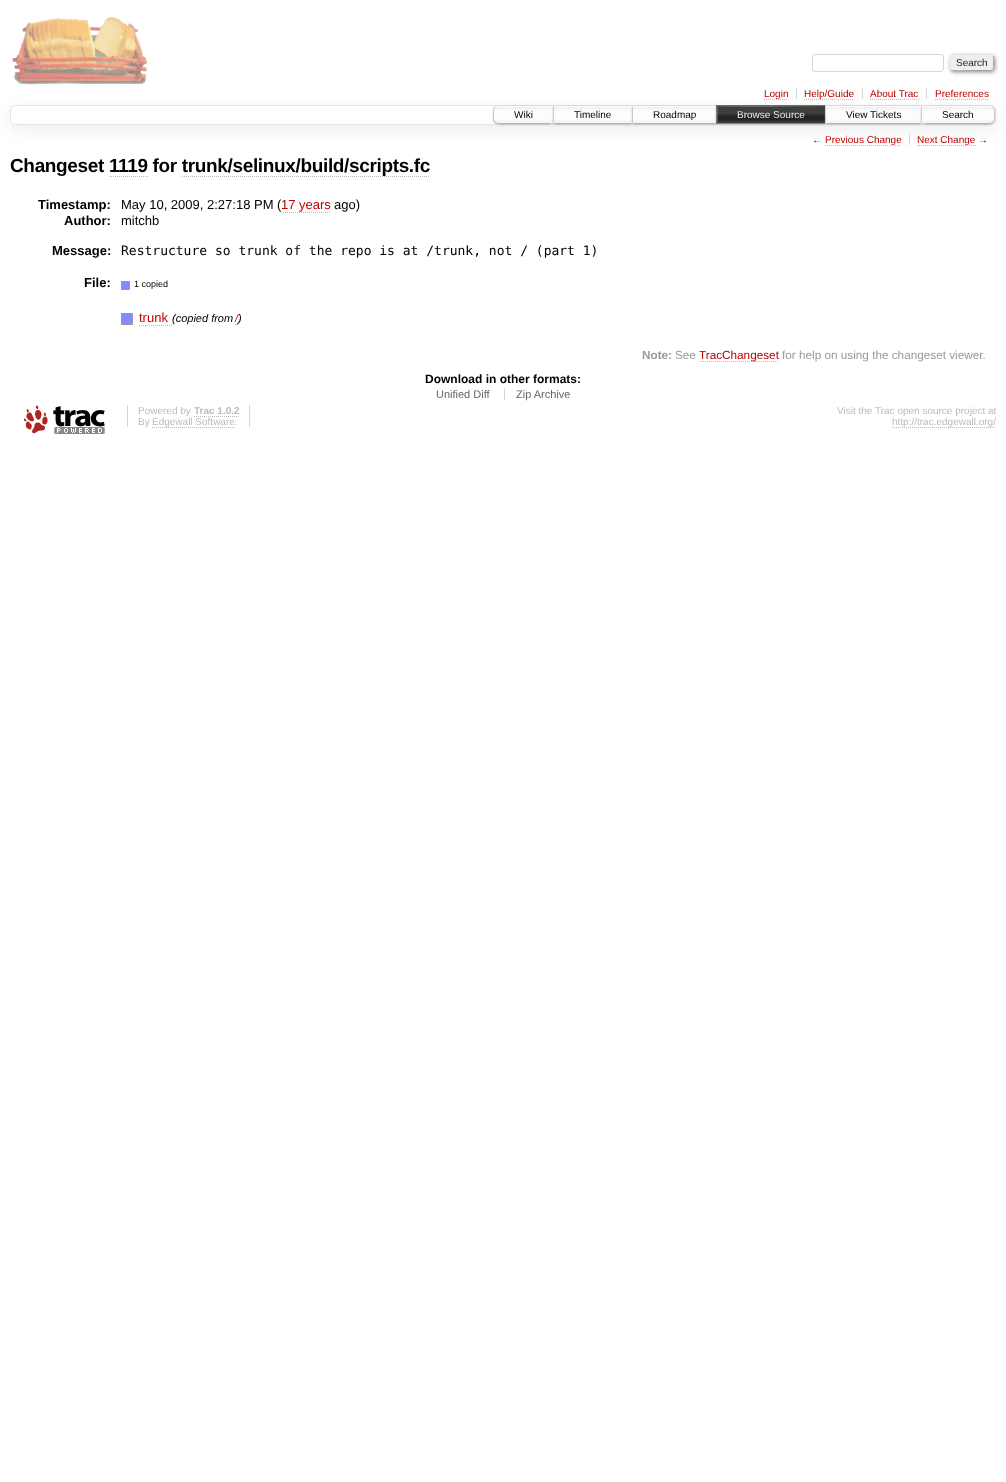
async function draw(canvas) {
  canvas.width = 1006
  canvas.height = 1482
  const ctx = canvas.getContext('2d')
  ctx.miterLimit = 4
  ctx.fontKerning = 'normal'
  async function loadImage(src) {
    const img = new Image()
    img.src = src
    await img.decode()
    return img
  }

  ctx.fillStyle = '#fff'
  ctx.fillRect(0, 0, 1006, 1482)
  ctx.drawImage(await loadImage('image0.png'), 12, 17, 135, 68)
  ctx.beginPath()
  ctx.roundRect(812.5, 54.5, 131, 17, 2.5)
  ctx.strokeStyle = '#d7d7d7'
  ctx.stroke()
  ctx.fillStyle = '#888'
  ctx.filter = 'blur(2px)'
  ctx.beginPath()
  ctx.roundRect(951, 56, 44, 16, 3)
  ctx.fill()
  ctx.filter = 'none'
  ctx.fillStyle = '#eee'
  ctx.beginPath()
  ctx.roundRect(950, 55, 44, 16, 3)
  ctx.fill()
  ctx.beginPath()
  ctx.moveTo(993, 56)
  ctx.bezierCurveTo(994.5, 58, 993.5, 61, 993.5, 63)
  ctx.bezierCurveTo(993.5, 71.5, 994, 70.5, 984.5, 70.5)
  ctx.lineTo(972, 70.5)
  ctx.bezierCurveTo(969, 70.5, 953, 71.5, 951, 70)
  ctx.strokeStyle = '#9f9f9f'
  ctx.stroke()
  ctx.beginPath()
  ctx.moveTo(951, 70)
  ctx.bezierCurveTo(949.5, 68, 950.5, 65, 950.5, 63)
  ctx.bezierCurveTo(950.5, 54.5, 950, 55.5, 959.5, 55.5)
  ctx.lineTo(972, 55.5)
  ctx.bezierCurveTo(975, 55.5, 991, 54.5, 993, 56)
  ctx.strokeStyle = '#eee'
  ctx.stroke()
  ctx.font = '10px Liberation Sans'
  ctx.fillStyle = '#222'
  ctx.fillText('Search', 956, 66)
  ctx.save()
  ctx.beginPath()
  ctx.moveTo(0, 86)
  ctx.lineTo(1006, 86)
  ctx.lineTo(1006, 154)
  ctx.lineTo(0, 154)
  ctx.closePath()
  ctx.moveTo(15, 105)
  ctx.lineTo(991, 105)
  ctx.bezierCurveTo(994, 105, 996, 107, 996, 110)
  ctx.lineTo(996, 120)
  ctx.bezierCurveTo(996, 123, 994, 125, 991, 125)
  ctx.lineTo(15, 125)
  ctx.bezierCurveTo(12, 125, 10, 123, 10, 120)
  ctx.lineTo(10, 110)
  ctx.bezierCurveTo(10, 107, 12, 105, 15, 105)
  ctx.closePath()
  ctx.clip('evenodd')
  ctx.fillStyle = '#eee'
  ctx.filter = 'blur(7.5px)'
  ctx.beginPath()
  ctx.roundRect(10, 110, 986, 20, 5)
  ctx.fill()
  ctx.filter = 'none'
  ctx.restore()
  ctx.fillStyle = '#d7d7d7'
  ctx.fillRect(796, 88, 1, 11)
  ctx.beginPath()
  ctx.moveTo(764, 99.5)
  ctx.lineTo(788, 99.5)
  ctx.strokeStyle = '#bbb'
  ctx.setLineDash([1, 1])
  ctx.stroke()
  ctx.fillStyle = '#b00'
  ctx.fillText('Login', 764, 97)
  ctx.fillStyle = '#d7d7d7'
  ctx.fillRect(862, 88, 1, 11)
  ctx.beginPath()
  ctx.moveTo(804, 99.5)
  ctx.lineTo(854, 99.5)
  ctx.stroke()
  ctx.fillStyle = '#b00'
  ctx.fillText('Help/Guide', 804, 97)
  ctx.fillStyle = '#d7d7d7'
  ctx.fillRect(926, 88, 1, 11)
  ctx.fillStyle = '#b00'
  ctx.fillText('About Trac', 870, 97)
  ctx.beginPath()
  ctx.moveTo(870, 99.5)
  ctx.lineTo(919, 99.5)
  ctx.stroke()
  ctx.fillText('Preferences', 935, 97)
  ctx.beginPath()
  ctx.moveTo(935, 99.5)
  ctx.lineTo(989, 99.5)
  ctx.stroke()
  ctx.beginPath()
  ctx.roundRect(10.5, 105.5, 985, 19, 4.5)
  ctx.strokeStyle = '#e4e4e4'
  ctx.setLineDash([])
  ctx.stroke()
  ctx.fillStyle = '#fff'
  ctx.beginPath()
  ctx.roundRect(493, 105, 61, 19, [5, 0, 0, 5])
  ctx.fill()
  ctx.drawImage(await loadImage('image1.png'), 493, 107, 60, 17)
  ctx.beginPath()
  ctx.roundRect(493.5, 105.5, 60, 18, [4.5, 0, 0, 4.5])
  ctx.stroke()
  ctx.save()
  ctx.beginPath()
  ctx.moveTo(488, 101)
  ctx.lineTo(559, 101)
  ctx.lineTo(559, 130)
  ctx.lineTo(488, 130)
  ctx.closePath()
  ctx.moveTo(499, 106)
  ctx.lineTo(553, 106)
  ctx.lineTo(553, 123)
  ctx.lineTo(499, 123)
  ctx.bezierCurveTo(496, 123, 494, 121, 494, 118)
  ctx.lineTo(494, 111)
  ctx.bezierCurveTo(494, 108, 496, 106, 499, 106)
  ctx.closePath()
  ctx.clip('evenodd')
  ctx.fillStyle = '#999'
  ctx.filter = 'blur(1.5px)'
  ctx.beginPath()
  ctx.roundRect(494, 107, 59, 17, 5)
  ctx.fill()
  ctx.filter = 'none'
  ctx.restore()
  ctx.fillStyle = '#000'
  ctx.fillText('Wiki', 514, 118)
  ctx.fillStyle = '#fff'
  ctx.fillRect(554, 108, 2, 15)
  ctx.drawImage(await loadImage('image2.png'), 554, 107, 78, 16)
  ctx.strokeRect(553.5, 105.5, 79, 18)
  ctx.save()
  ctx.beginPath()
  ctx.moveTo(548, 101)
  ctx.lineTo(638, 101)
  ctx.lineTo(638, 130)
  ctx.lineTo(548, 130)
  ctx.closePath()
  ctx.moveTo(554, 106)
  ctx.lineTo(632, 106)
  ctx.lineTo(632, 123)
  ctx.lineTo(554, 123)
  ctx.closePath()
  ctx.clip('evenodd')
  ctx.fillStyle = '#999'
  ctx.filter = 'blur(1.5px)'
  ctx.beginPath()
  ctx.rect(554, 107, 78, 17)
  ctx.fill()
  ctx.filter = 'none'
  ctx.restore()
  ctx.fillStyle = '#000'
  ctx.fillText('Timeline', 574, 118)
  ctx.fillStyle = '#fff'
  ctx.fillRect(633, 106, 2, 17)
  ctx.drawImage(await loadImage('image3.png'), 633, 107, 83, 16)
  ctx.strokeRect(632.5, 105.5, 84, 18)
  ctx.save()
  ctx.beginPath()
  ctx.moveTo(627, 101)
  ctx.lineTo(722, 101)
  ctx.lineTo(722, 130)
  ctx.lineTo(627, 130)
  ctx.closePath()
  ctx.moveTo(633, 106)
  ctx.lineTo(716, 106)
  ctx.lineTo(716, 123)
  ctx.lineTo(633, 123)
  ctx.closePath()
  ctx.clip('evenodd')
  ctx.fillStyle = '#999'
  ctx.filter = 'blur(1.5px)'
  ctx.beginPath()
  ctx.rect(633, 107, 83, 17)
  ctx.fill()
  ctx.filter = 'none'
  ctx.restore()
  ctx.fillStyle = '#000'
  ctx.fillText('Roadmap', 653, 118)
  ctx.strokeStyle = '#666'
  ctx.strokeRect(716.5, 105.5, 109, 18)
  ctx.fillStyle = '#999'
  ctx.filter = 'blur(1.5px)'
  ctx.beginPath()
  ctx.rect(717, 107, 108, 17)
  ctx.fill()
  ctx.filter = 'none'
  ctx.fillStyle = '#000'
  ctx.fillRect(717, 106, 108, 17)
  ctx.drawImage(await loadImage('image4.png'), 717, 106, 108, 17)
  ctx.fillStyle = '#eee'
  ctx.fillText('Browse Source', 737, 118)
  ctx.fillStyle = '#fff'
  ctx.fillRect(826, 106, 2, 17)
  ctx.drawImage(await loadImage('image5.png'), 826, 107, 95, 16)
  ctx.strokeStyle = '#e4e4e4'
  ctx.strokeRect(825.5, 105.5, 96, 18)
  ctx.save()
  ctx.beginPath()
  ctx.moveTo(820, 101)
  ctx.lineTo(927, 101)
  ctx.lineTo(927, 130)
  ctx.lineTo(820, 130)
  ctx.closePath()
  ctx.moveTo(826, 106)
  ctx.lineTo(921, 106)
  ctx.lineTo(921, 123)
  ctx.lineTo(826, 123)
  ctx.closePath()
  ctx.clip('evenodd')
  ctx.fillStyle = '#999'
  ctx.filter = 'blur(1.5px)'
  ctx.beginPath()
  ctx.rect(826, 107, 95, 17)
  ctx.fill()
  ctx.filter = 'none'
  ctx.restore()
  ctx.fillStyle = '#000'
  ctx.fillText('View Tickets', 846, 118)
  ctx.fillStyle = '#fff'
  ctx.beginPath()
  ctx.roundRect(921, 105, 74, 19, [0, 5, 5, 0])
  ctx.fill()
  ctx.drawImage(await loadImage('image6.png'), 922, 107, 73, 17)
  ctx.beginPath()
  ctx.roundRect(921.5, 105.5, 73, 18, [0, 4.5, 4.5, 0])
  ctx.stroke()
  ctx.save()
  ctx.beginPath()
  ctx.moveTo(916, 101)
  ctx.lineTo(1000, 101)
  ctx.lineTo(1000, 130)
  ctx.lineTo(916, 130)
  ctx.closePath()
  ctx.moveTo(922, 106)
  ctx.lineTo(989, 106)
  ctx.bezierCurveTo(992, 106, 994, 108, 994, 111)
  ctx.lineTo(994, 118)
  ctx.bezierCurveTo(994, 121, 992, 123, 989, 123)
  ctx.lineTo(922, 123)
  ctx.closePath()
  ctx.clip('evenodd')
  ctx.fillStyle = '#999'
  ctx.filter = 'blur(1.5px)'
  ctx.beginPath()
  ctx.roundRect(922, 107, 72, 17, 5)
  ctx.fill()
  ctx.filter = 'none'
  ctx.restore()
  ctx.fillStyle = '#000'
  ctx.fillText('Search', 942, 118)
  ctx.fillStyle = '#d7d7d7'
  ctx.fillRect(909, 134, 1, 11)
  ctx.fillStyle = '#000'
  ctx.fillText('←', 812, 143)
  ctx.beginPath()
  ctx.moveTo(825, 145.5)
  ctx.lineTo(901, 145.5)
  ctx.strokeStyle = '#bbb'
  ctx.setLineDash([1, 1])
  ctx.stroke()
  ctx.fillStyle = '#b00'
  ctx.fillText('Previous Change', 825, 143)
  ctx.beginPath()
  ctx.moveTo(917, 145.5)
  ctx.lineTo(976, 145.5)
  ctx.stroke()
  ctx.fillText('Next Change', 917, 143)
  ctx.fillStyle = '#000'
  ctx.fillText('→', 978, 143)
  ctx.letterSpacing = '-0.35px'
  ctx.font = 'bold 19px Liberation Sans'
  ctx.fillText('Changeset 1119 for trunk/selinux/build/scripts.fc', 10, 172)
  ctx.beginPath()
  ctx.moveTo(109, 176.5)
  ctx.lineTo(148, 176.5)
  ctx.stroke()
  ctx.beginPath()
  ctx.moveTo(182, 176.5)
  ctx.lineTo(430, 176.5)
  ctx.stroke()
  ctx.letterSpacing = '0px'
  ctx.font = 'bold 13px Liberation Sans'
  ctx.fillText('Timestamp:', 38, 209)
  ctx.font = '13px Liberation Sans'
  ctx.fillText('May 10, 2009, 2:27:18 PM (', 121, 209)
  ctx.fillStyle = '#b00'
  ctx.fillText('17 years', 281, 209)
  ctx.beginPath()
  ctx.moveTo(281, 212.5)
  ctx.lineTo(331, 212.5)
  ctx.stroke()
  ctx.fillStyle = '#000'
  ctx.fillText('ago)', 334, 209)
  ctx.font = 'bold 13px Liberation Sans'
  ctx.fillText('Author:', 64, 225)
  ctx.font = '13px Liberation Sans'
  ctx.fillText('mitchb', 121, 225)
  ctx.font = 'bold 13px Liberation Sans'
  ctx.fillText('Message:', 52, 255)
  ctx.font = '13px DejaVu Sans Mono'
  ctx.fillText('Restructure so trunk of the repo is at /trunk, not / (part 1)', 121, 255)
  ctx.font = 'bold 13px Liberation Sans'
  ctx.fillText('File:', 84, 287)
  ctx.fillStyle = '#88f'
  ctx.beginPath()
  ctx.rect(121.5, 281.5, 8, 8)
  ctx.fill()
  ctx.strokeStyle = '#999'
  ctx.setLineDash([])
  ctx.stroke()
  ctx.font = '9px Liberation Sans'
  ctx.fillStyle = '#000'
  ctx.fillText('1 copied', 134, 287)
  ctx.fillStyle = '#88f'
  ctx.beginPath()
  ctx.rect(121.5, 313.5, 11, 11)
  ctx.fill()
  ctx.stroke()
  ctx.font = '13px Liberation Sans'
  ctx.fillStyle = '#b00'
  ctx.fillText('trunk', 139, 322)
  ctx.beginPath()
  ctx.moveTo(139, 325.5)
  ctx.lineTo(172, 325.5)
  ctx.strokeStyle = '#bbb'
  ctx.setLineDash([1, 1])
  ctx.stroke()
  ctx.font = 'italic 11px Liberation Sans'
  ctx.fillStyle = '#000'
  ctx.fillText('(copied from', 172, 322)
  ctx.fillStyle = '#b00'
  ctx.fillText('/', 235, 322)
  ctx.fillStyle = '#bbb'
  ctx.fillRect(235, 324, 3, 1)
  ctx.fillStyle = '#000'
  ctx.fillText(')', 238, 322)
  ctx.font = 'bold 11.75px Liberation Sans'
  ctx.fillStyle = '#999'
  ctx.fillText('Note:', 642, 359)
  ctx.font = '11.75px Liberation Sans'
  ctx.fillText('See', 675, 359)
  ctx.beginPath()
  ctx.moveTo(699, 361.5)
  ctx.lineTo(778, 361.5)
  ctx.stroke()
  ctx.fillStyle = '#b00'
  ctx.fillText('TracChangeset', 699, 359)
  ctx.fillStyle = '#999'
  ctx.fillText('for help on using the changeset viewer.', 782, 359)
  ctx.font = 'bold 12px Liberation Sans'
  ctx.fillStyle = '#000'
  ctx.fillText('Download in other formats:', 425, 383)
  ctx.font = '11px Liberation Sans'
  ctx.fillStyle = '#666'
  ctx.fillText('Unified Diff', 436, 398)
  ctx.fillStyle = '#d7d7d7'
  ctx.fillRect(504, 388, 1, 12)
  ctx.fillStyle = '#666'
  ctx.fillText('Zip Archive', 516, 398)
  ctx.drawImage(await loadImage('image7.png'), 24, 405, 81, 29)
  ctx.fillStyle = '#d7d7d7'
  ctx.fillRect(249, 405, 1, 22)
  ctx.fillRect(127, 405, 1, 22)
  ctx.font = '10px Liberation Sans'
  ctx.fillStyle = '#bbb'
  ctx.fillText('Powered by', 138, 414)
  ctx.font = 'bold 10px Liberation Sans'
  ctx.fillText('Trac 1.0.2', 194, 414)
  ctx.beginPath()
  ctx.moveTo(194, 416.5)
  ctx.lineTo(239, 416.5)
  ctx.stroke()
  ctx.font = '10px Liberation Sans'
  ctx.fillText('By', 138, 425)
  ctx.beginPath()
  ctx.moveTo(152, 427.5)
  ctx.lineTo(235, 427.5)
  ctx.stroke()
  ctx.fillText('Edgewall Software.', 152, 425)
  ctx.fillText('Visit the Trac open source project at', 837, 414)
  ctx.beginPath()
  ctx.moveTo(892, 427.5)
  ctx.lineTo(996, 427.5)
  ctx.stroke()
  ctx.fillText('http://trac.edgewall.org/', 892, 425)
}

draw(document.querySelector('canvas'))
